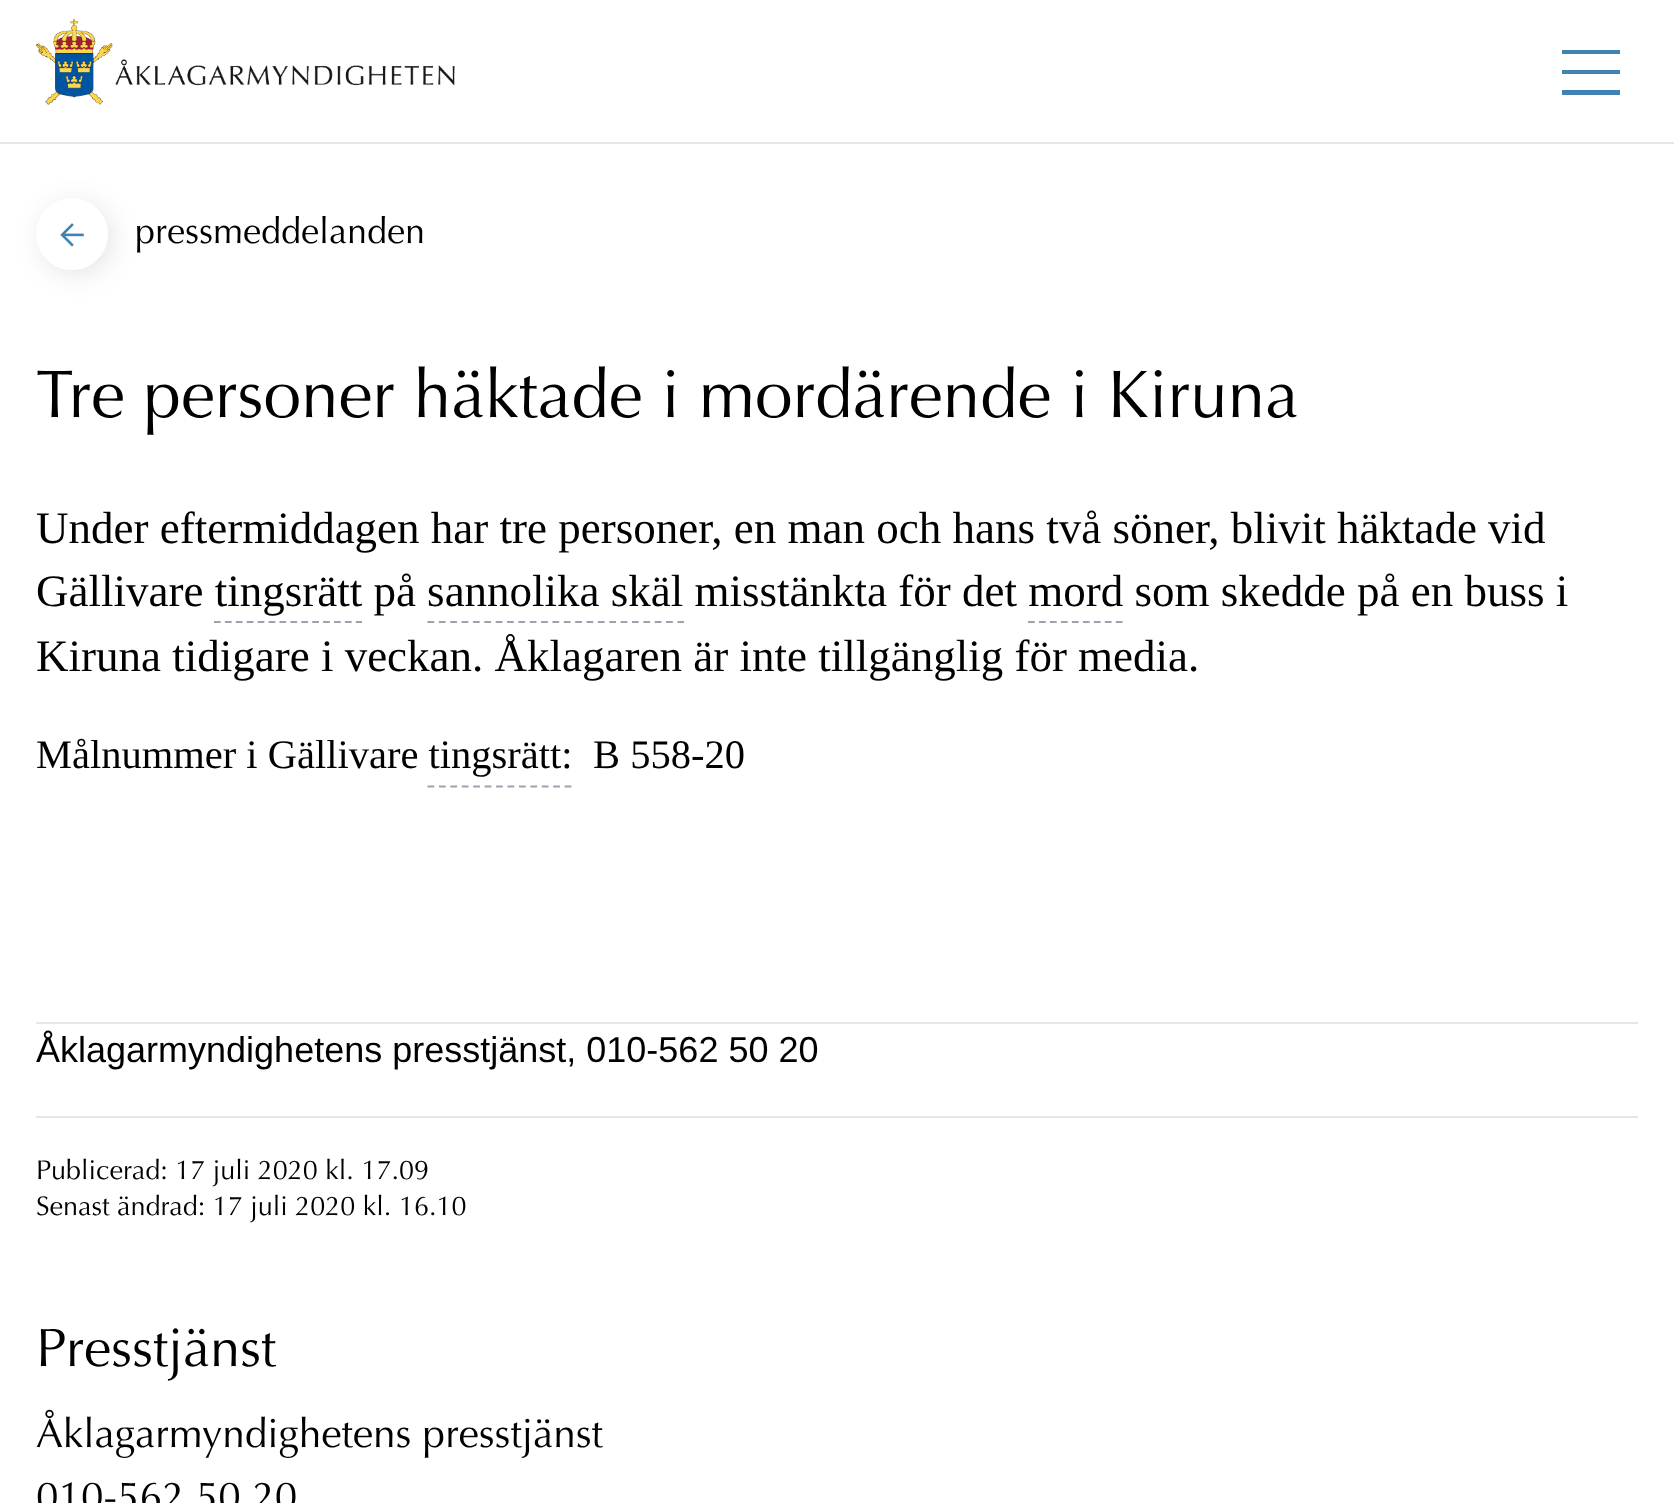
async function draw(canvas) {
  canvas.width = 1674
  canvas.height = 1503
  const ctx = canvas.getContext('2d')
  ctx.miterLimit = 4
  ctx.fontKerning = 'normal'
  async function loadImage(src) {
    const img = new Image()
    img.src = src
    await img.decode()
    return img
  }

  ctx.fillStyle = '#fff'
  ctx.fillRect(0, 0, 1674, 1503)
  ctx.fillStyle = '#e6e6e6'
  ctx.fillRect(0, 142, 1674, 2)
  ctx.drawImage(await loadImage('image0.png'), 36, 18, 419, 87)
  ctx.fillStyle = '#4082b1'
  ctx.fillRect(1562, 70, 58, 4)
  ctx.fillRect(1562, 50, 58, 4)
  ctx.fillRect(1562, 90, 58, 5)
  ctx.fillStyle = '#0000001a'
  ctx.filter = 'blur(13.5px)'
  ctx.beginPath()
  ctx.roundRect(41, 203, 72, 72, 36)
  ctx.fill()
  ctx.filter = 'none'
  ctx.fillStyle = '#fff'
  ctx.beginPath()
  ctx.moveTo(72, 198)
  ctx.bezierCurveTo(52, 198, 36, 215, 36, 234)
  ctx.bezierCurveTo(36, 254, 52, 270, 72, 270)
  ctx.bezierCurveTo(92, 270, 108, 254, 108, 234)
  ctx.bezierCurveTo(108, 215, 92, 198, 72, 198)
  ctx.closePath()
  ctx.fill()
  ctx.drawImage(await loadImage('image1.png'), 60, 223, 24, 24)
  ctx.font = '36px Optima'
  ctx.fillStyle = '#000'
  ctx.fillText('pressmeddelanden', 135, 243)
  ctx.font = '67.5px Optima'
  ctx.fillText('Tre personer häktade i mordärende i Kiruna', 36, 417)
  ctx.font = '45px Liberation Serif'
  ctx.fillText('Under eftermiddagen har tre personer, en man och hans två söner, blivit häktade vid', 36, 543)
  ctx.fillText('Gällivare tingsrätt på sannolika skäl misstänkta för det mord som skedde på en buss i', 36, 606)
  ctx.beginPath()
  ctx.moveTo(214, 622)
  ctx.lineTo(362, 622)
  ctx.strokeStyle = '#9ca3af'
  ctx.lineWidth = 2.2
  ctx.setLineDash([6.75, 4.16])
  ctx.stroke()
  ctx.beginPath()
  ctx.moveTo(427.5, 622)
  ctx.lineTo(684, 622)
  ctx.setLineDash([6.75, 4.61])
  ctx.stroke()
  ctx.beginPath()
  ctx.moveTo(1028, 622)
  ctx.lineTo(1123, 622)
  ctx.setLineDash([6.75, 4.23])
  ctx.stroke()
  ctx.fillText('Kiruna tidigare i veckan. Åklagaren är inte tillgänglig för media.', 36, 671)
  ctx.font = '40.5px Liberation Serif'
  ctx.fillText('Målnummer i Gällivare tingsrätt:', 36, 768)
  ctx.fillText('B 558-20', 593, 768)
  ctx.beginPath()
  ctx.moveTo(427.5, 786.5)
  ctx.lineTo(571.5, 786.5)
  ctx.setLineDash([6.75, 4.68])
  ctx.stroke()
  ctx.fillStyle = '#e5e7eb'
  ctx.fillRect(36, 1022, 1602, 2)
  ctx.font = '36px Liberation Sans'
  ctx.fillStyle = '#000'
  ctx.fillText('Åklagarmyndighetens presstjänst, 010-562 50 20', 36, 1062)
  ctx.fillStyle = '#e6e6e6'
  ctx.fillRect(36, 1116, 1602, 2)
  ctx.font = '27px Optima'
  ctx.fillStyle = '#000'
  ctx.fillText('Publicerad: 17 juli 2020 kl. 17.09', 36, 1179)
  ctx.fillText('Senast ändrad: 17 juli 2020 kl. 16.10', 36, 1215)
  ctx.font = '54px Optima'
  ctx.fillText('Presstjänst', 36, 1366)
  ctx.font = '40.5px Optima'
  ctx.fillText('Åklagarmyndighetens presstjänst', 36, 1447)
  ctx.fillText('010-562 50 20', 36, 1510)
}

draw(document.querySelector('canvas'))
